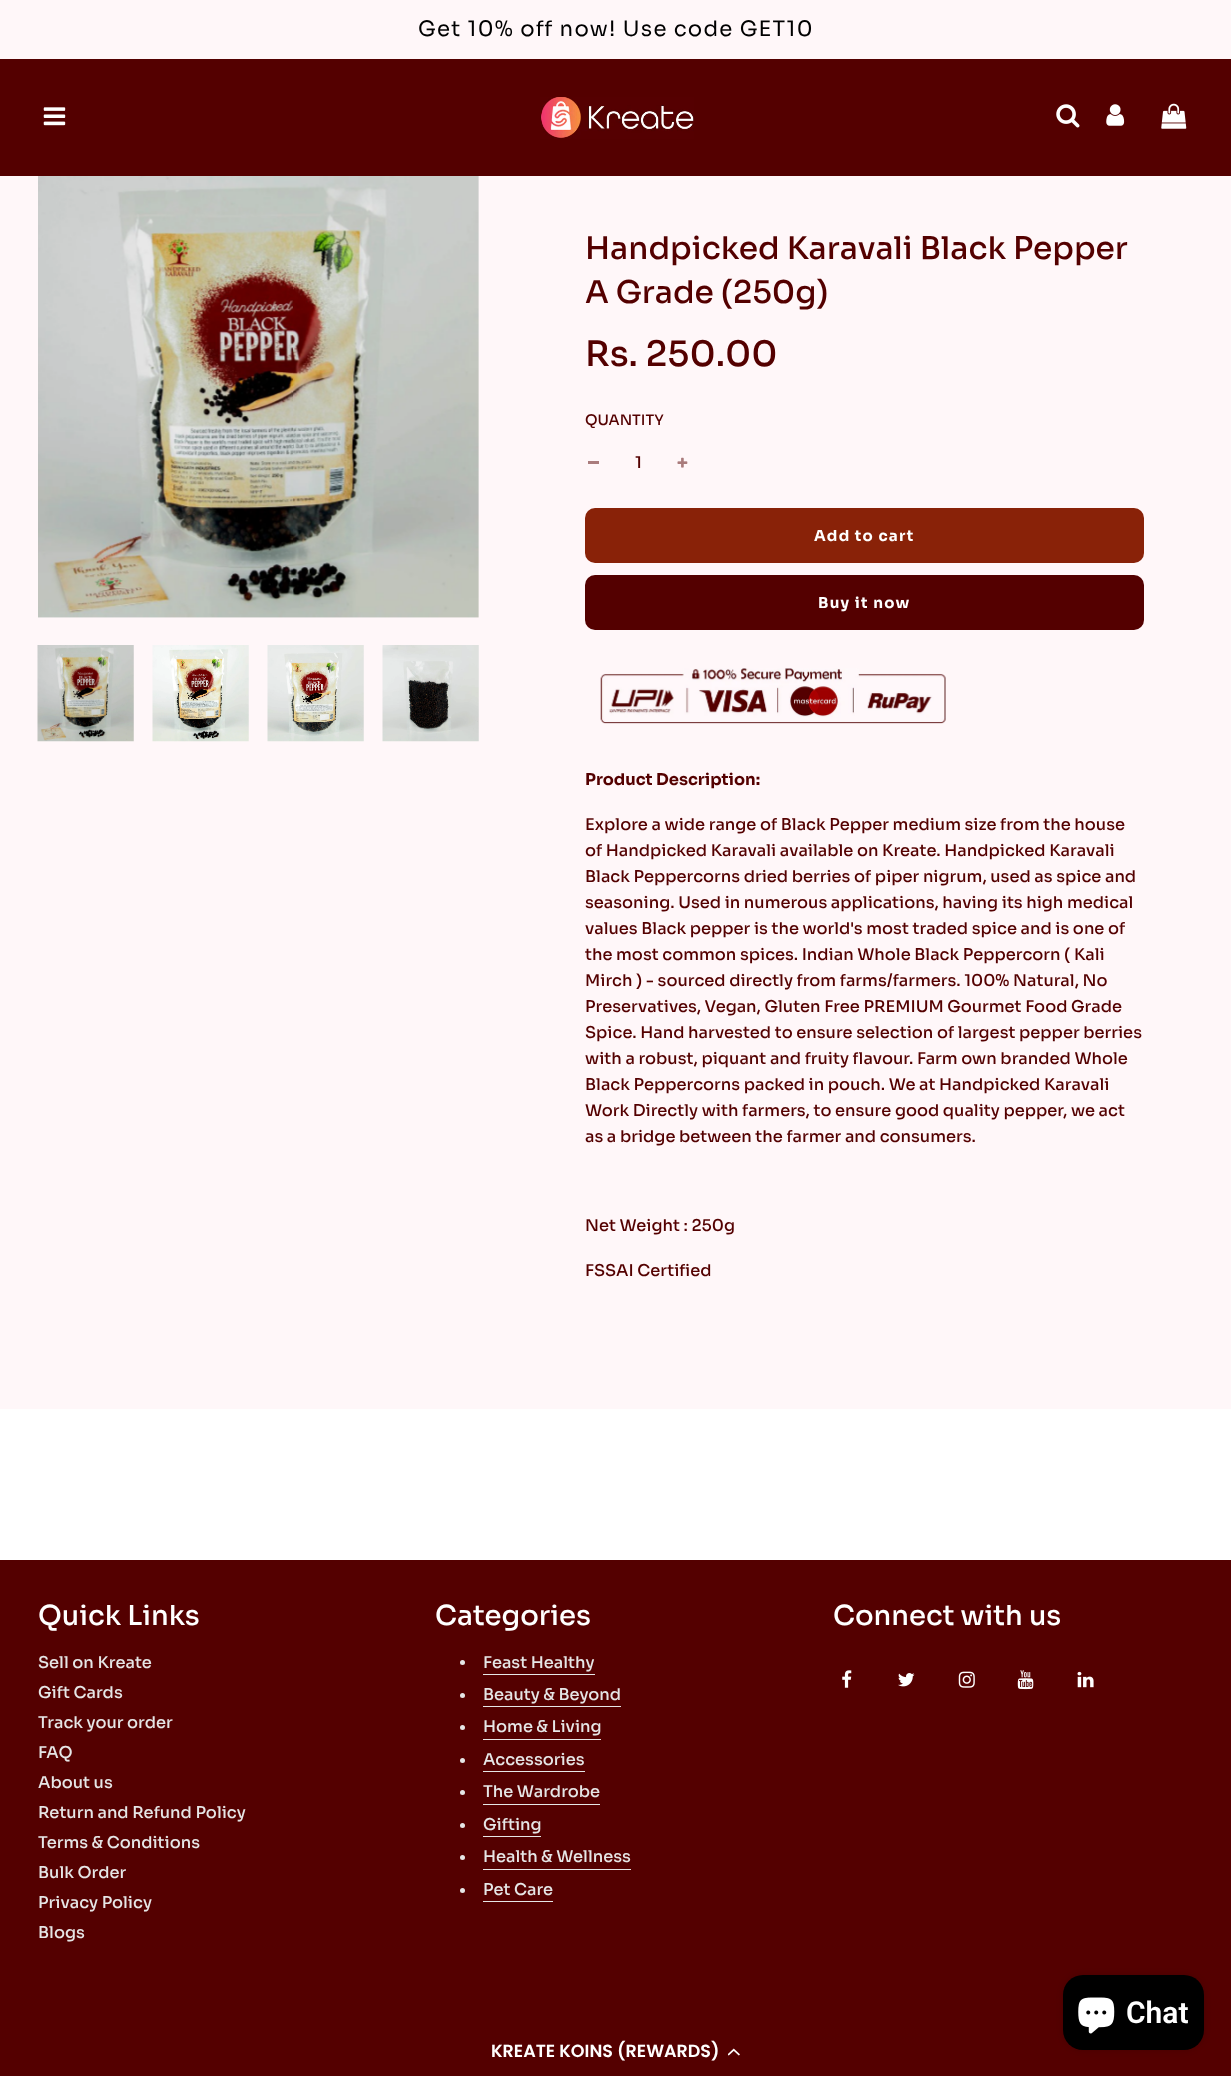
async function draw(canvas) {
  canvas.width = 1231
  canvas.height = 2076
  const ctx = canvas.getContext('2d')
  ctx.miterLimit = 4
  ctx.fontKerning = 'normal'
  async function loadImage(src) {
    const img = new Image()
    img.src = src
    await img.decode()
    return img
  }

  ctx.fillStyle = '#fff7f9'
  ctx.fillRect(0, 0, 1231, 2076)
  ctx.letterSpacing = '1.25px'
  ctx.font = '21.25px Sora'
  ctx.fillStyle = '#000'
  ctx.fillText('Get 10% off now! Use code GET10', 418, 36)
  ctx.fillStyle = '#540000'
  ctx.fillRect(0, 59, 1231, 117)
  ctx.drawImage(await loadImage('image0.png'), 43, 107, 23, 19)
  ctx.drawImage(await loadImage('image1.png'), 540, 97, 154, 42)
  ctx.drawImage(await loadImage('image2.png'), 1056, 104, 24, 24)
  ctx.drawImage(await loadImage('image3.png'), 1106, 104, 19, 22)
  ctx.drawImage(await loadImage('image4.png'), 1161, 103, 26, 26)
  ctx.drawImage(await loadImage('image5.png'), 38, 176, 441, 442)
  ctx.drawImage(await loadImage('image6.png'), 37, 645, 97, 97)
  ctx.drawImage(await loadImage('image7.png'), 152, 645, 97, 97)
  ctx.drawImage(await loadImage('image8.png'), 267, 645, 97, 97)
  ctx.drawImage(await loadImage('image9.png'), 382, 645, 97, 97)
  ctx.letterSpacing = '0px'
  ctx.font = '500 31.25px Sora'
  ctx.fillText('Handpicked Karavali Black Pepper', 585, 259)
  ctx.fillText('A Grade (250g)', 585, 303)
  ctx.font = '500 35px Sora'
  ctx.fillText('Rs. 250.00', 585, 366)
  ctx.font = '500 14.5px Sora'
  ctx.fillText('QUANTITY', 585, 425)
  ctx.fillStyle = '#aa7c7d'
  ctx.fillRect(588, 461, 11, 3)
  ctx.font = '500 16.25px Sora'
  ctx.fillStyle = '#540000'
  ctx.fillText('1', 635, 468)
  ctx.drawImage(await loadImage('image10.png'), 677, 457, 11, 11)
  ctx.fillStyle = '#892208'
  ctx.beginPath()
  ctx.roundRect(585, 508, 559, 55, 10)
  ctx.fill()
  ctx.letterSpacing = '1.25px'
  ctx.font = 'bold 15px Sora'
  ctx.fillStyle = '#fff'
  ctx.fillText('Add to cart', 814, 541)
  ctx.fillStyle = '#540000'
  ctx.beginPath()
  ctx.roundRect(585, 575, 559, 55, 10)
  ctx.fill()
  ctx.fillStyle = '#fff'
  ctx.fillText('Buy it now', 818, 608)
  ctx.drawImage(await loadImage('image11.png'), 600, 668, 346, 56)
  ctx.letterSpacing = '0px'
  ctx.font = 'bold 16.25px Sora'
  ctx.fillStyle = '#540000'
  ctx.fillText('Product Description:', 585, 785)
  ctx.font = '500 16.25px Sora'
  ctx.fillText('Explore a wide range of Black Pepper medium size from the house', 585, 830)
  ctx.fillText('of Handpicked Karavali available on Kreate. Handpicked Karavali', 585, 856)
  ctx.fillText('Black Peppercorns dried berries of piper nigrum, used as spice and', 585, 882)
  ctx.fillText('seasoning. Used in numerous applications, having its high medical', 585, 908)
  ctx.fillText('values Black pepper is the world\'s most traded spice and is one of', 585, 934)
  ctx.fillText('the most common spices. Indian Whole Black Peppercorn ( Kali', 585, 960)
  ctx.fillText('Mirch ) - sourced directly from farms/farmers. 100% Natural, No', 585, 986)
  ctx.fillText('Preservatives, Vegan, Gluten Free PREMIUM Gourmet Food Grade', 585, 1012)
  ctx.fillText('Spice. Hand harvested to ensure selection of largest pepper berries', 585, 1038)
  ctx.fillText('with a robust, piquant and fruity flavour. Farm own branded Whole', 585, 1064)
  ctx.fillText('Black Peppercorns packed in pouch. We at Handpicked Karavali', 585, 1090)
  ctx.fillText('Work Directly with farmers, to ensure good quality pepper, we act', 585, 1116)
  ctx.fillText('as a bridge between the farmer and consumers.', 585, 1142)
  ctx.fillText('Net Weight : 250g', 585, 1231)
  ctx.fillText('FSSAI Certified', 585, 1276)
  ctx.fillStyle = '#fff'
  ctx.fillRect(0, 1409, 1231, 151)
  ctx.fillStyle = '#540000'
  ctx.fillRect(0, 1560, 1231, 516)
  ctx.font = '500 27.5px Sora'
  ctx.fillStyle = '#fff'
  ctx.fillText('Quick Links', 38, 1625)
  ctx.font = '500 16.25px Sora'
  ctx.fillStyle = '#e6e6e6'
  ctx.fillText('Sell on Kreate', 38, 1668)
  ctx.fillText('Gift Cards', 38, 1698)
  ctx.fillText('Track your order', 38, 1728)
  ctx.fillText('FAQ', 38, 1758)
  ctx.fillText('About us', 38, 1788)
  ctx.fillText('Return and Refund Policy', 38, 1818)
  ctx.fillText('Terms & Conditions', 38, 1848)
  ctx.fillText('Bulk Order', 38, 1878)
  ctx.fillText('Privacy Policy', 38, 1908)
  ctx.fillText('Blogs', 38, 1938)
  ctx.font = '500 27.5px Sora'
  ctx.fillStyle = '#fff'
  ctx.fillText('Categories', 435, 1625)
  ctx.fillStyle = '#e6e6e6'
  ctx.beginPath()
  ctx.arc(462.5, 1662.5, 2.5, 0, 2 * Math.PI)
  ctx.fill()
  ctx.font = '500 16.25px Sora'
  ctx.fillText('Feast Healthy', 483, 1668)
  ctx.fillRect(483, 1674, 112, 1)
  ctx.beginPath()
  ctx.arc(462.5, 1695.5, 2.5, 0, 2 * Math.PI)
  ctx.fill()
  ctx.fillText('Beauty & Beyond', 483, 1700)
  ctx.fillRect(483, 1706, 138, 1)
  ctx.beginPath()
  ctx.arc(462.5, 1727.5, 2.5, 0, 2 * Math.PI)
  ctx.fill()
  ctx.fillText('Home & Living', 483, 1732)
  ctx.fillRect(483, 1739, 118, 1)
  ctx.beginPath()
  ctx.arc(462.5, 1760.5, 2.5, 0, 2 * Math.PI)
  ctx.fill()
  ctx.fillText('Accessories', 483, 1765)
  ctx.fillRect(483, 1771, 102, 1)
  ctx.beginPath()
  ctx.arc(462.5, 1792.5, 2.5, 0, 2 * Math.PI)
  ctx.fill()
  ctx.fillText('The Wardrobe', 483, 1797)
  ctx.fillRect(483, 1804, 117, 1)
  ctx.beginPath()
  ctx.arc(462.5, 1825.5, 2.5, 0, 2 * Math.PI)
  ctx.fill()
  ctx.fillText('Gifting', 483, 1830)
  ctx.fillRect(483, 1836, 58, 1)
  ctx.beginPath()
  ctx.arc(462.5, 1857.5, 2.5, 0, 2 * Math.PI)
  ctx.fill()
  ctx.fillText('Health & Wellness', 483, 1862)
  ctx.fillRect(483, 1869, 148, 1)
  ctx.beginPath()
  ctx.arc(462.5, 1890.5, 2.5, 0, 2 * Math.PI)
  ctx.fill()
  ctx.fillText('Pet Care', 483, 1895)
  ctx.fillRect(483, 1901, 70, 1)
  ctx.font = '500 27.5px Sora'
  ctx.fillStyle = '#fff'
  ctx.fillText('Connect with us', 833, 1625)
  ctx.drawImage(await loadImage('image12.png'), 842, 1670, 10, 18)
  ctx.drawImage(await loadImage('image13.png'), 898, 1673, 17, 14)
  ctx.drawImage(await loadImage('image14.png'), 958, 1671, 17, 17)
  ctx.drawImage(await loadImage('image15.png'), 1017, 1670, 17, 20)
  ctx.drawImage(await loadImage('image16.png'), 1077, 1671, 17, 17)
  ctx.fillStyle = '#00000026'
  ctx.filter = 'blur(3px)'
  ctx.beginPath()
  ctx.roundRect(1063, 1975, 141, 75, 20)
  ctx.fill()
  ctx.filter = 'none'
  ctx.fillStyle = '#000'
  ctx.beginPath()
  ctx.roundRect(1063, 1975, 141, 75, 20)
  ctx.fill()
  ctx.drawImage(await loadImage('image17.png'), 1078, 1997, 37, 37)
  ctx.font = '600 30px Roboto'
  ctx.fillStyle = '#fff'
  ctx.fillText('Chat', 1126, 2023)
  ctx.font = '600 17.5px Poppins'
  ctx.fillText('KREATE KOINS (REWARDS)', 491, 2057)
  ctx.drawImage(await loadImage('image18.png'), 728, 2048, 12, 8)
}

draw(document.querySelector('canvas'))
